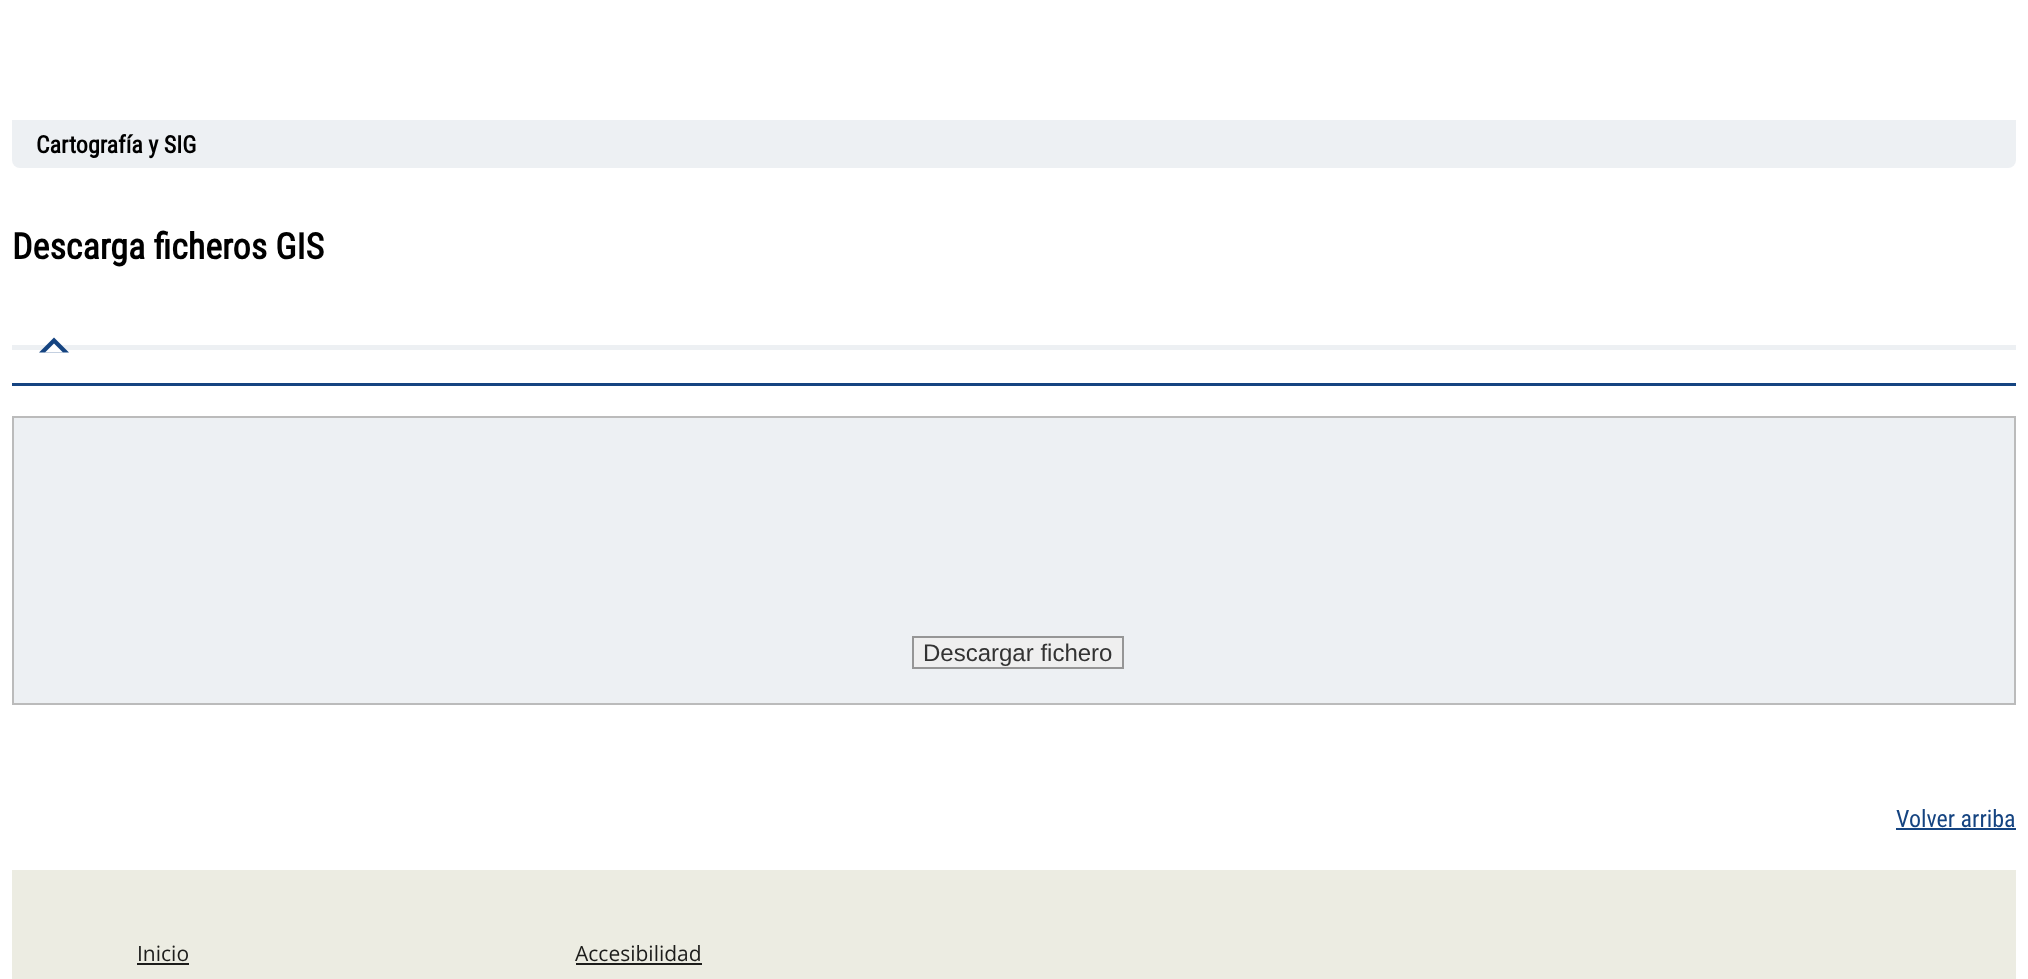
async function draw(canvas) {
  canvas.width = 2028
  canvas.height = 979
  const ctx = canvas.getContext('2d')
  ctx.miterLimit = 4
  ctx.fontKerning = 'normal'

  ctx.fillStyle = '#fff'
  ctx.fillRect(0, 0, 2028, 979)
  ctx.fillStyle = '#edf0f3'
  ctx.beginPath()
  ctx.roundRect(12, 120, 2004, 48, [0, 0, 8, 8])
  ctx.fill()
  ctx.font = 'bold 24px Roboto Condensed'
  ctx.fillStyle = '#000'
  ctx.fillText('Cartografía y SIG', 36, 153)
  ctx.font = 'bold 36px Roboto Condensed'
  ctx.fillText('Descarga ficheros GIS', 12, 259)
  ctx.fillStyle = '#edf0f3'
  ctx.fillRect(12, 345, 2004, 5)
  ctx.fillStyle = '#154481'
  ctx.fillRect(12, 383, 2004, 3)
  ctx.beginPath()
  ctx.moveTo(69, 352.5)
  ctx.lineTo(39, 352.5)
  ctx.lineTo(54, 337.5)
  ctx.closePath()
  ctx.fill()
  ctx.fillStyle = '#fff'
  ctx.beginPath()
  ctx.moveTo(63, 352.5)
  ctx.lineTo(45, 352.5)
  ctx.lineTo(54, 343.5)
  ctx.closePath()
  ctx.fill()
  ctx.fillStyle = '#edf0f3'
  ctx.beginPath()
  ctx.rect(13, 417, 2002, 287)
  ctx.fill()
  ctx.strokeStyle = '#bbb'
  ctx.lineWidth = 2
  ctx.stroke()
  ctx.fillStyle = '#efefef'
  ctx.beginPath()
  ctx.rect(913, 637, 210, 31)
  ctx.fill()
  ctx.strokeStyle = '#969696'
  ctx.stroke()
  ctx.font = '24px Liberation Sans'
  ctx.fillStyle = '#333'
  ctx.fillText('Descargar fichero', 923, 661)
  ctx.font = '24px Roboto Condensed'
  ctx.fillStyle = '#154481'
  ctx.fillText('Volver arriba', 1896, 827)
  ctx.fillRect(1896, 828, 120, 2)
  ctx.fillStyle = '#ecece2'
  ctx.fillRect(12, 870, 2004, 109)
  ctx.font = '21px Open Sans'
  ctx.fillStyle = '#1d1d1b'
  ctx.fillText('Inicio', 137, 961)
  ctx.fillRect(137, 963, 52, 2)
  ctx.fillText('Accesibilidad', 575, 961)
  ctx.fillRect(576, 963, 126, 2)
}

draw(document.querySelector('canvas'))
